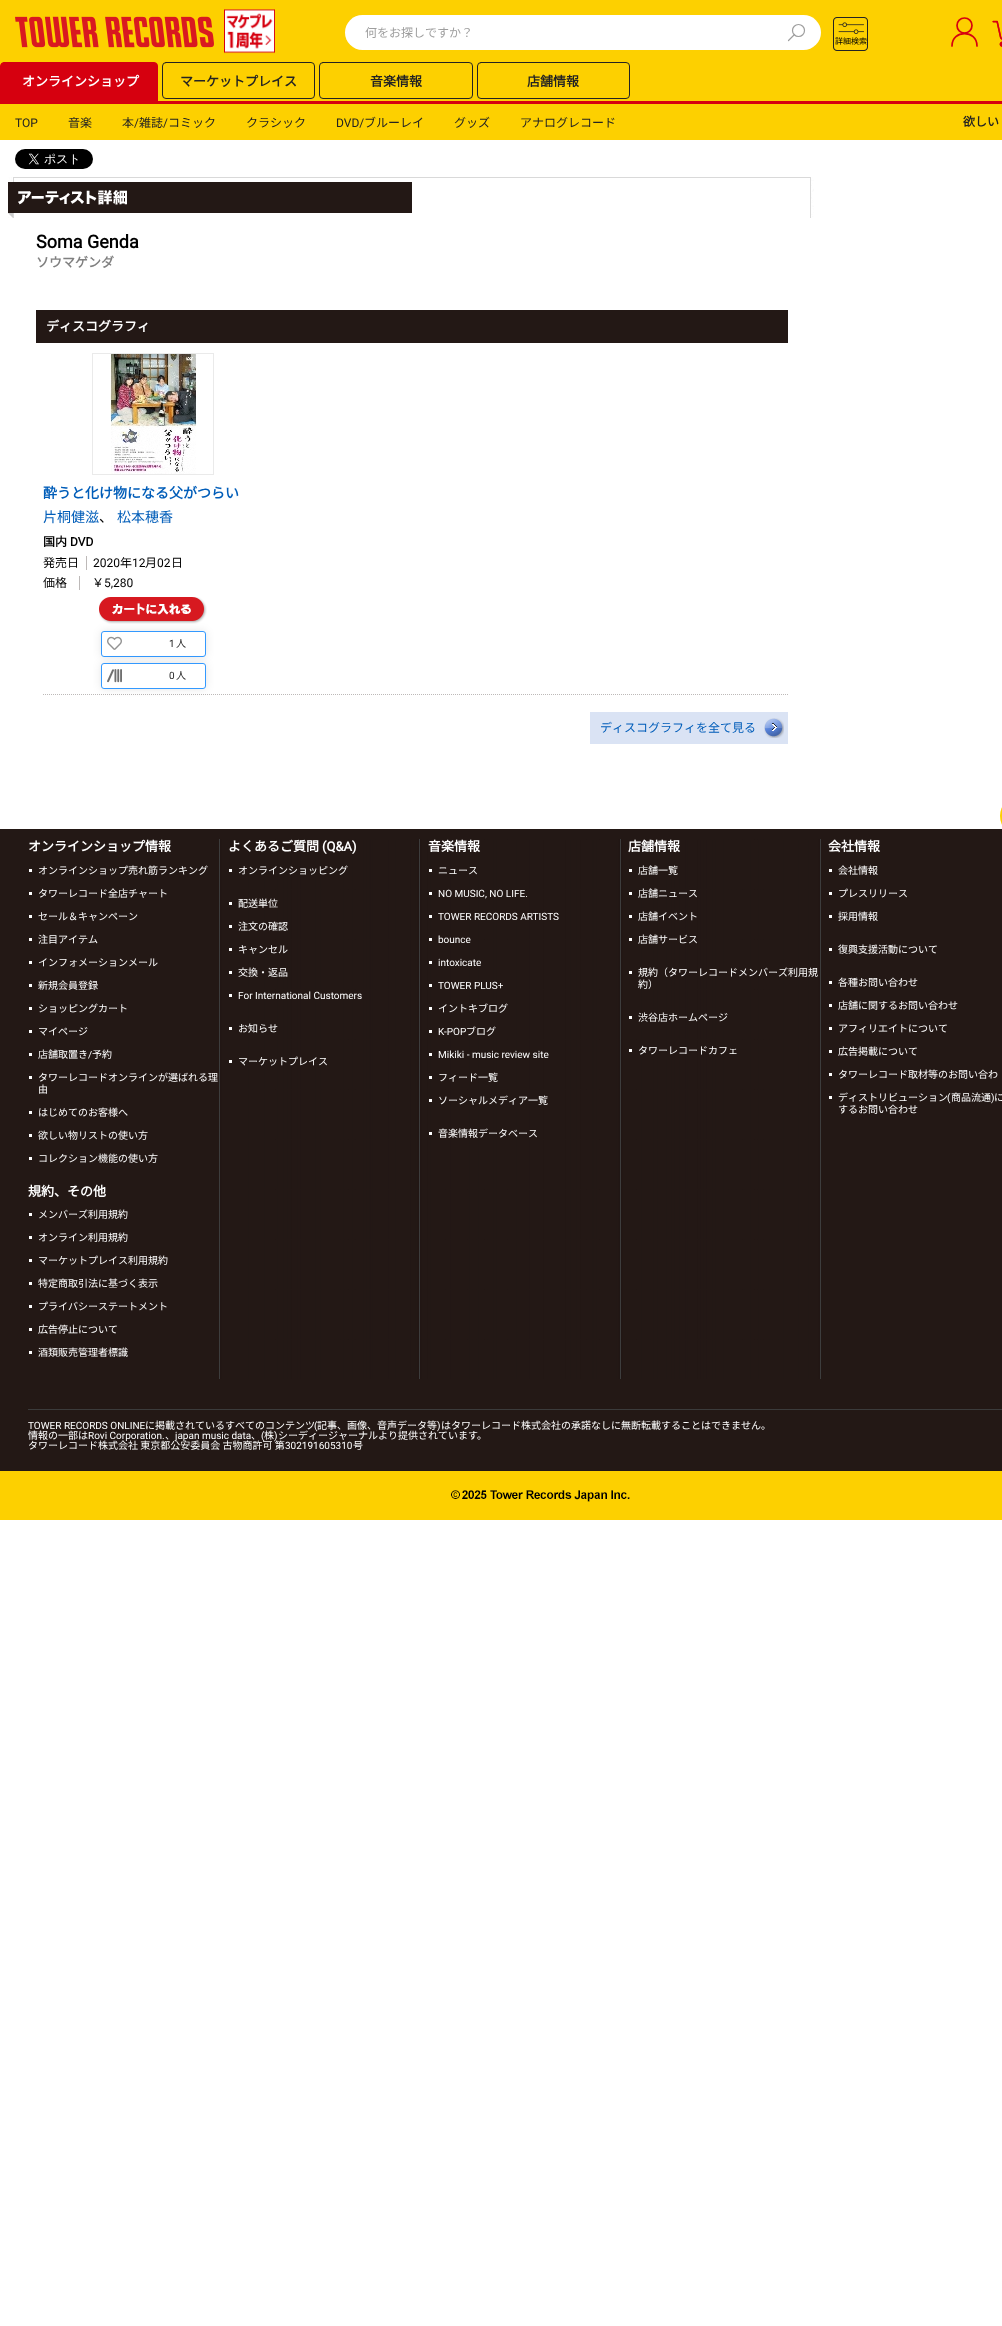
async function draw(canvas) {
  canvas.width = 1002
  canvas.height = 2326
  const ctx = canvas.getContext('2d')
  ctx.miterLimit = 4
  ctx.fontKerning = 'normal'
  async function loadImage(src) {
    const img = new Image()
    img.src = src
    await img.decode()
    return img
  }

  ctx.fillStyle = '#fff'
  ctx.fillRect(0, 0, 1002, 2326)
  ctx.fillStyle = '#fdd000'
  ctx.fillRect(0, 0, 1002, 140)
  ctx.drawImage(await loadImage('image0.png'), 15, 16, 199, 32)
  ctx.drawImage(await loadImage('image1.png'), 224, 9, 51, 45)
  ctx.fillStyle = '#fff'
  ctx.beginPath()
  ctx.roundRect(345, 15, 476, 35, 17.5)
  ctx.fill()
  ctx.font = '100 12px Noto Sans JP'
  ctx.fillStyle = '#9e9e9e'
  ctx.fillText('何をお探しですか？', 365, 37)
  ctx.beginPath()
  ctx.arc(798.5, 30.5, 6, 0, 2 * Math.PI)
  ctx.strokeStyle = '#9e9e9e'
  ctx.lineWidth = 1.2
  ctx.stroke()
  ctx.beginPath()
  ctx.moveTo(794.5, 34.5)
  ctx.lineTo(788.5, 40.5)
  ctx.lineCap = 'round'
  ctx.lineJoin = 'round'
  ctx.stroke()
  ctx.drawImage(await loadImage('image2.png'), 833, 17, 35, 34)
  ctx.font = '100 8px Noto Sans JP'
  ctx.fillStyle = '#000'
  ctx.fillText('詳細検索', 835, 44)
  ctx.beginPath()
  ctx.arc(964.5, 25.5, 7.5, 0, 2 * Math.PI)
  ctx.strokeStyle = '#d60010'
  ctx.lineWidth = 1.7
  ctx.stroke()
  ctx.beginPath()
  ctx.moveTo(977, 46)
  ctx.bezierCurveTo(977, 29.5, 952, 29.5, 952, 46)
  ctx.stroke()
  ctx.drawImage(await loadImage('image3.png'), 992, 20, 10, 27)
  ctx.fillStyle = '#d6000f'
  ctx.fillRect(0, 101, 1002, 3)
  ctx.beginPath()
  ctx.roundRect(0.5, 62.5, 157, 40, [3.5, 3.5, 0, 0])
  ctx.fill()
  ctx.strokeStyle = '#d6000f'
  ctx.lineWidth = 1
  ctx.lineJoin = 'miter'
  ctx.stroke()
  ctx.font = 'bold 13px Noto Sans JP'
  ctx.fillStyle = '#fff'
  ctx.fillText('オンラインショップ', 22, 86)
  ctx.beginPath()
  ctx.roundRect(162.5, 62.5, 152, 36, 3.5)
  ctx.strokeStyle = '#232323'
  ctx.stroke()
  ctx.fillStyle = '#232323'
  ctx.fillText('マーケットプレイス', 180, 86)
  ctx.beginPath()
  ctx.roundRect(319.5, 62.5, 153, 36, 3.5)
  ctx.stroke()
  ctx.fillText('音楽情報', 370, 86)
  ctx.beginPath()
  ctx.roundRect(477.5, 62.5, 152, 36, 3.5)
  ctx.stroke()
  ctx.fillText('店舗情報', 527, 86)
  ctx.font = '12px Roboto'
  ctx.fillText('TOP', 15, 127)
  ctx.font = '100 12px Noto Sans JP'
  ctx.fillText('音楽', 68, 127)
  ctx.fillText('本', 122, 127)
  ctx.font = '12px Roboto'
  ctx.fillText('/', 134, 127)
  ctx.font = '100 12px Noto Sans JP'
  ctx.fillText('雑誌', 139, 127)
  ctx.font = '12px Roboto'
  ctx.fillText('/', 163, 127)
  ctx.font = '100 12px Noto Sans JP'
  ctx.fillText('コミック', 168, 127)
  ctx.fillText('クラシック', 246, 127)
  ctx.font = '12px Roboto'
  ctx.fillText('DVD/', 336, 127)
  ctx.font = '100 12px Noto Sans JP'
  ctx.fillText('ブルーレイ', 364, 127)
  ctx.fillText('グッズ', 454, 127)
  ctx.fillText('アナログレコード', 520, 127)
  ctx.font = 'bold 12px Noto Sans JP'
  ctx.fillText('欲しい', 963, 126)
  ctx.drawImage(await loadImage('image4.png'), 15, 149, 78, 20)
  ctx.drawImage(await loadImage('image5.png'), 8, 177, 806, 41)
  ctx.font = 'bold 18px Roboto'
  ctx.fillStyle = '#000'
  ctx.fillText('Soma Genda', 36, 248)
  ctx.font = 'bold 13px Noto Sans JP'
  ctx.fillStyle = '#808080'
  ctx.fillText('ソウマゲンダ', 36, 267)
  ctx.fillStyle = '#231815'
  ctx.fillRect(36, 310, 752, 33)
  ctx.fillStyle = '#fff'
  ctx.fillText('ディスコグラフィ', 46, 331)
  ctx.beginPath()
  ctx.moveTo(43, 694.5)
  ctx.lineTo(788, 694.5)
  ctx.strokeStyle = '#bdb9b8'
  ctx.lineCap = 'butt'
  ctx.setLineDash([1, 1])
  ctx.stroke()
  ctx.strokeStyle = '#eaeaea'
  ctx.setLineDash([])
  ctx.strokeRect(92.5, 353.5, 121, 121)
  ctx.drawImage(await loadImage('image6.png'), 110, 354, 87, 120)
  ctx.font = 'bold 14px Noto Sans JP'
  ctx.fillStyle = '#005db9'
  ctx.fillText('酔うと化け物になる父がつらい', 43, 498)
  ctx.font = '100 14px Noto Sans JP'
  ctx.fillText('片桐健滋', 43, 522)
  ctx.fillStyle = '#000'
  ctx.fillText('、', 99, 522)
  ctx.fillStyle = '#005db9'
  ctx.fillText('松本穂香', 117, 522)
  ctx.font = 'bold 12px Noto Sans JP'
  ctx.fillStyle = '#000'
  ctx.fillText('国内', 43, 546)
  ctx.font = 'bold 12px Roboto'
  ctx.fillText('DVD', 70, 546)
  ctx.fillStyle = '#bdb9b8'
  ctx.fillRect(86, 556, 1, 14)
  ctx.font = '100 12px Noto Sans JP'
  ctx.fillStyle = '#000'
  ctx.fillText('発売日', 43, 567)
  ctx.font = '12px Roboto'
  ctx.fillText('2020', 93, 567)
  ctx.font = '100 12px Noto Sans JP'
  ctx.fillText('年', 120, 567)
  ctx.font = '12px Roboto'
  ctx.fillText('12', 132, 567)
  ctx.font = '100 12px Noto Sans JP'
  ctx.fillText('月', 145, 567)
  ctx.font = '12px Roboto'
  ctx.fillText('02', 157, 567)
  ctx.font = '100 12px Noto Sans JP'
  ctx.fillText('日', 171, 567)
  ctx.fillStyle = '#bdb9b8'
  ctx.fillRect(79, 576, 1, 14)
  ctx.fillStyle = '#000'
  ctx.fillText('価格', 43, 587)
  ctx.fillText('￥', 92, 587)
  ctx.font = '12px Roboto'
  ctx.fillText('5,280', 104, 587)
  ctx.drawImage(await loadImage('image7.png'), 99, 597, 108, 27)
  ctx.fillStyle = '#0000001a'
  ctx.filter = 'blur(4px)'
  ctx.beginPath()
  ctx.roundRect(101, 631, 105, 26, 3)
  ctx.fill()
  ctx.filter = 'none'
  ctx.fillStyle = '#fff'
  ctx.beginPath()
  ctx.roundRect(101.5, 631.5, 104, 25, 2.5)
  ctx.fill()
  ctx.strokeStyle = '#39f'
  ctx.stroke()
  ctx.drawImage(await loadImage('image8.png'), 107, 636, 15, 14)
  ctx.letterSpacing = '1px'
  ctx.font = '10px Roboto'
  ctx.fillStyle = '#232323'
  ctx.fillText('1', 169, 647)
  ctx.font = '100 10px Noto Sans JP'
  ctx.fillText('人', 176, 647)
  ctx.fillStyle = '#0000001a'
  ctx.filter = 'blur(4px)'
  ctx.beginPath()
  ctx.roundRect(101, 663, 105, 26, 3)
  ctx.fill()
  ctx.filter = 'none'
  ctx.fillStyle = '#fff'
  ctx.beginPath()
  ctx.roundRect(101.5, 663.5, 104, 25, 2.5)
  ctx.fill()
  ctx.stroke()
  ctx.drawImage(await loadImage('image9.png'), 107, 669, 15, 14)
  ctx.font = '10px Roboto'
  ctx.fillStyle = '#232323'
  ctx.fillText('0', 169, 679)
  ctx.font = '100 10px Noto Sans JP'
  ctx.fillText('人', 176, 679)
  ctx.fillStyle = '#dae3f4'
  ctx.fillRect(590, 712, 198, 32)
  ctx.drawImage(await loadImage('image10.png'), 764, 718, 20, 20)
  ctx.letterSpacing = '0px'
  ctx.font = '100 12px Noto Sans JP'
  ctx.fillStyle = '#005db9'
  ctx.fillText('ディスコグラフィを全て見る', 600, 732)
  ctx.fillStyle = '#fdd000'
  ctx.beginPath()
  ctx.arc(1020, 816, 20, 0, 2 * Math.PI)
  ctx.fill()
  ctx.fillStyle = '#231815'
  ctx.fillRect(0, 829, 1002, 642)
  ctx.drawImage(await loadImage('image11.png'), 219, 839, 602, 540)
  ctx.font = 'bold 13px Noto Sans JP'
  ctx.fillStyle = '#fff'
  ctx.fillText('オンラインショップ情報', 28, 851)
  ctx.fillRect(29, 869, 3, 3)
  ctx.font = '100 10px Noto Sans JP'
  ctx.fillText('オンラインショップ売れ筋ランキング', 38, 874)
  ctx.fillRect(29, 892, 3, 3)
  ctx.fillText('タワーレコード全店チャート', 38, 897)
  ctx.fillRect(29, 915, 3, 3)
  ctx.fillText('セール＆キャンペーン', 38, 920)
  ctx.fillRect(29, 938, 3, 3)
  ctx.fillText('注目アイテム', 38, 943)
  ctx.fillRect(29, 961, 3, 3)
  ctx.fillText('インフォメーションメール', 38, 966)
  ctx.fillRect(29, 984, 3, 3)
  ctx.fillText('新規会員登録', 38, 989)
  ctx.fillRect(29, 1007, 3, 3)
  ctx.fillText('ショッピングカート', 38, 1012)
  ctx.fillRect(29, 1030, 3, 3)
  ctx.fillText('マイページ', 38, 1035)
  ctx.fillRect(29, 1053, 3, 3)
  ctx.fillText('店舗取置き', 38, 1058)
  ctx.font = '10px Roboto'
  ctx.fillText('/', 88, 1058)
  ctx.font = '100 10px Noto Sans JP'
  ctx.fillText('予約', 92, 1058)
  ctx.fillRect(29, 1076, 3, 3)
  ctx.fillText('タワーレコードオンラインが選ばれる理', 38, 1081)
  ctx.fillText('由', 38, 1093)
  ctx.fillRect(29, 1111, 3, 3)
  ctx.fillText('はじめてのお客様へ', 38, 1116)
  ctx.fillRect(29, 1134, 3, 3)
  ctx.fillText('欲しい物リストの使い方', 38, 1139)
  ctx.fillRect(29, 1157, 3, 3)
  ctx.fillText('コレクション機能の使い方', 38, 1162)
  ctx.font = 'bold 13px Noto Sans JP'
  ctx.fillText('規約、その他', 28, 1196)
  ctx.fillRect(29, 1213, 3, 3)
  ctx.font = '100 10px Noto Sans JP'
  ctx.fillText('メンバーズ利用規約', 38, 1218)
  ctx.fillRect(29, 1236, 3, 3)
  ctx.fillText('オンライン利用規約', 38, 1241)
  ctx.fillRect(29, 1259, 3, 3)
  ctx.fillText('マーケットプレイス利用規約', 38, 1264)
  ctx.fillRect(29, 1282, 3, 3)
  ctx.fillText('特定商取引法に基づく表示', 38, 1287)
  ctx.fillRect(29, 1305, 3, 3)
  ctx.fillText('プライバシーステートメント', 38, 1310)
  ctx.fillRect(29, 1328, 3, 3)
  ctx.fillText('広告停止について', 38, 1333)
  ctx.fillRect(29, 1351, 3, 3)
  ctx.fillText('酒類販売管理者標識', 38, 1356)
  ctx.font = 'bold 13px Noto Sans JP'
  ctx.fillText('よくあるご質問', 228, 851)
  ctx.font = 'bold 13px Roboto'
  ctx.fillText('(Q&A)', 322, 851)
  ctx.fillRect(229, 869, 3, 3)
  ctx.font = '100 10px Noto Sans JP'
  ctx.fillText('オンラインショッピング', 238, 874)
  ctx.fillRect(229, 902, 3, 3)
  ctx.fillText('配送単位', 238, 907)
  ctx.fillRect(229, 925, 3, 3)
  ctx.fillText('注文の確認', 238, 930)
  ctx.fillRect(229, 948, 3, 3)
  ctx.fillText('キャンセル', 238, 953)
  ctx.fillRect(229, 971, 3, 3)
  ctx.fillText('交換・返品', 238, 976)
  ctx.fillRect(229, 994, 3, 3)
  ctx.font = '10px Roboto'
  ctx.fillText('For International Customers', 238, 999)
  ctx.fillRect(229, 1027, 3, 3)
  ctx.font = '100 10px Noto Sans JP'
  ctx.fillText('お知らせ', 238, 1032)
  ctx.fillRect(229, 1060, 3, 3)
  ctx.fillText('マーケットプレイス', 238, 1065)
  ctx.font = 'bold 13px Noto Sans JP'
  ctx.fillText('音楽情報', 428, 851)
  ctx.fillRect(429, 869, 3, 3)
  ctx.font = '100 10px Noto Sans JP'
  ctx.fillText('ニュース', 438, 874)
  ctx.fillRect(429, 892, 3, 3)
  ctx.font = '10px Roboto'
  ctx.fillText('NO MUSIC, NO LIFE.', 438, 897)
  ctx.fillRect(429, 915, 3, 3)
  ctx.fillText('TOWER RECORDS ARTISTS', 438, 920)
  ctx.fillRect(429, 938, 3, 3)
  ctx.fillText('bounce', 438, 943)
  ctx.fillRect(429, 961, 3, 3)
  ctx.fillText('intoxicate', 438, 966)
  ctx.fillRect(429, 984, 3, 3)
  ctx.fillText('TOWER PLUS+', 438, 989)
  ctx.fillRect(429, 1007, 3, 3)
  ctx.font = '100 10px Noto Sans JP'
  ctx.fillText('イントキブログ', 438, 1012)
  ctx.fillRect(429, 1030, 3, 3)
  ctx.font = '10px Roboto'
  ctx.fillText('K-POP', 438, 1035)
  ctx.font = '100 10px Noto Sans JP'
  ctx.fillText('ブログ', 466, 1035)
  ctx.fillRect(429, 1053, 3, 3)
  ctx.font = '10px Roboto'
  ctx.fillText('Mikiki - music review site', 438, 1058)
  ctx.fillRect(429, 1076, 3, 3)
  ctx.font = '100 10px Noto Sans JP'
  ctx.fillText('フィード一覧', 438, 1081)
  ctx.fillRect(429, 1099, 3, 3)
  ctx.fillText('ソーシャルメディア一覧', 438, 1104)
  ctx.fillRect(429, 1132, 3, 3)
  ctx.fillText('音楽情報データベース', 438, 1137)
  ctx.font = 'bold 13px Noto Sans JP'
  ctx.fillText('店舗情報', 628, 851)
  ctx.fillRect(629, 869, 3, 3)
  ctx.font = '100 10px Noto Sans JP'
  ctx.fillText('店舗一覧', 638, 874)
  ctx.fillRect(629, 892, 3, 3)
  ctx.fillText('店舗ニュース', 638, 897)
  ctx.fillRect(629, 915, 3, 3)
  ctx.fillText('店舗イベント', 638, 920)
  ctx.fillRect(629, 938, 3, 3)
  ctx.fillText('店舗サービス', 638, 943)
  ctx.fillRect(629, 971, 3, 3)
  ctx.fillText('規約（タワーレコードメンバーズ利用規', 638, 976)
  ctx.fillText('約）', 638, 988)
  ctx.fillRect(629, 1016, 3, 3)
  ctx.fillText('渋谷店ホームページ', 638, 1021)
  ctx.fillRect(629, 1049, 3, 3)
  ctx.fillText('タワーレコードカフェ', 638, 1054)
  ctx.font = 'bold 13px Noto Sans JP'
  ctx.fillText('会社情報', 828, 851)
  ctx.fillRect(829, 869, 3, 3)
  ctx.font = '100 10px Noto Sans JP'
  ctx.fillText('会社情報', 838, 874)
  ctx.fillRect(829, 892, 3, 3)
  ctx.fillText('プレスリリース', 838, 897)
  ctx.fillRect(829, 915, 3, 3)
  ctx.fillText('採用情報', 838, 920)
  ctx.fillRect(829, 948, 3, 3)
  ctx.fillText('復興支援活動について', 838, 953)
  ctx.fillRect(829, 981, 3, 3)
  ctx.fillText('各種お問い合わせ', 838, 986)
  ctx.fillRect(829, 1004, 3, 3)
  ctx.fillText('店舗に関するお問い合わせ', 838, 1009)
  ctx.fillRect(829, 1027, 3, 3)
  ctx.fillText('アフィリエイトについて', 838, 1032)
  ctx.fillRect(829, 1050, 3, 3)
  ctx.fillText('広告掲載について', 838, 1055)
  ctx.fillRect(829, 1073, 3, 3)
  ctx.fillText('タワーレコード取材等のお問い合わ', 838, 1078)
  ctx.fillRect(829, 1096, 3, 3)
  ctx.fillText('ディストリビューション', 838, 1101)
  ctx.font = '10px Roboto'
  ctx.fillText('(', 947, 1101)
  ctx.font = '100 10px Noto Sans JP'
  ctx.fillText('商品流通', 951, 1101)
  ctx.font = '10px Roboto'
  ctx.fillText(')', 991, 1101)
  ctx.font = '100 10px Noto Sans JP'
  ctx.fillText('に', 994, 1101)
  ctx.fillText('するお問い合わせ', 838, 1113)
  ctx.fillStyle = '#3b3b3b'
  ctx.fillRect(28, 1409, 974, 1)
  ctx.font = '10px Roboto'
  ctx.fillStyle = '#fff'
  ctx.fillText('TOWER RECORDS ONLINE', 28, 1429)
  ctx.font = '100 10px Noto Sans JP'
  ctx.fillText('に掲載されているすべてのコンテンツ', 145, 1429)
  ctx.font = '10px Roboto'
  ctx.fillText('(', 314, 1429)
  ctx.font = '100 10px Noto Sans JP'
  ctx.fillText('記事、画像、音声データ等', 317, 1429)
  ctx.font = '10px Roboto'
  ctx.fillText(')', 437, 1429)
  ctx.font = '100 10px Noto Sans JP'
  ctx.fillText('はタワーレコード株式会社の承諾なしに無断転載することはできません。', 441, 1429)
  ctx.fillText('情報の一部は', 28, 1439)
  ctx.font = '10px Roboto'
  ctx.fillText('Rovi Corporation.', 88, 1439)
  ctx.font = '100 10px Noto Sans JP'
  ctx.fillText('、', 165, 1439)
  ctx.font = '10px Roboto'
  ctx.fillText('japan music data', 175, 1439)
  ctx.font = '100 10px Noto Sans JP'
  ctx.fillText('、', 251, 1439)
  ctx.font = '10px Roboto'
  ctx.fillText('(', 261, 1439)
  ctx.font = '100 10px Noto Sans JP'
  ctx.fillText('株', 264, 1439)
  ctx.font = '10px Roboto'
  ctx.fillText(')', 274, 1439)
  ctx.font = '100 10px Noto Sans JP'
  ctx.fillText('シーディージャーナルより提供されています。', 278, 1439)
  ctx.fillText('タワーレコード株式会社 東京都公安委員会 古物商許可 第', 28, 1449)
  ctx.font = '10px Roboto'
  ctx.fillText('302191605310', 285, 1449)
  ctx.font = '100 10px Noto Sans JP'
  ctx.fillText('号', 353, 1449)
  ctx.fillStyle = '#fdd000'
  ctx.fillRect(0, 1471, 1002, 49)
  ctx.drawImage(await loadImage('image12.png'), 451, 1490, 179, 12)
}

draw(document.querySelector('canvas'))
